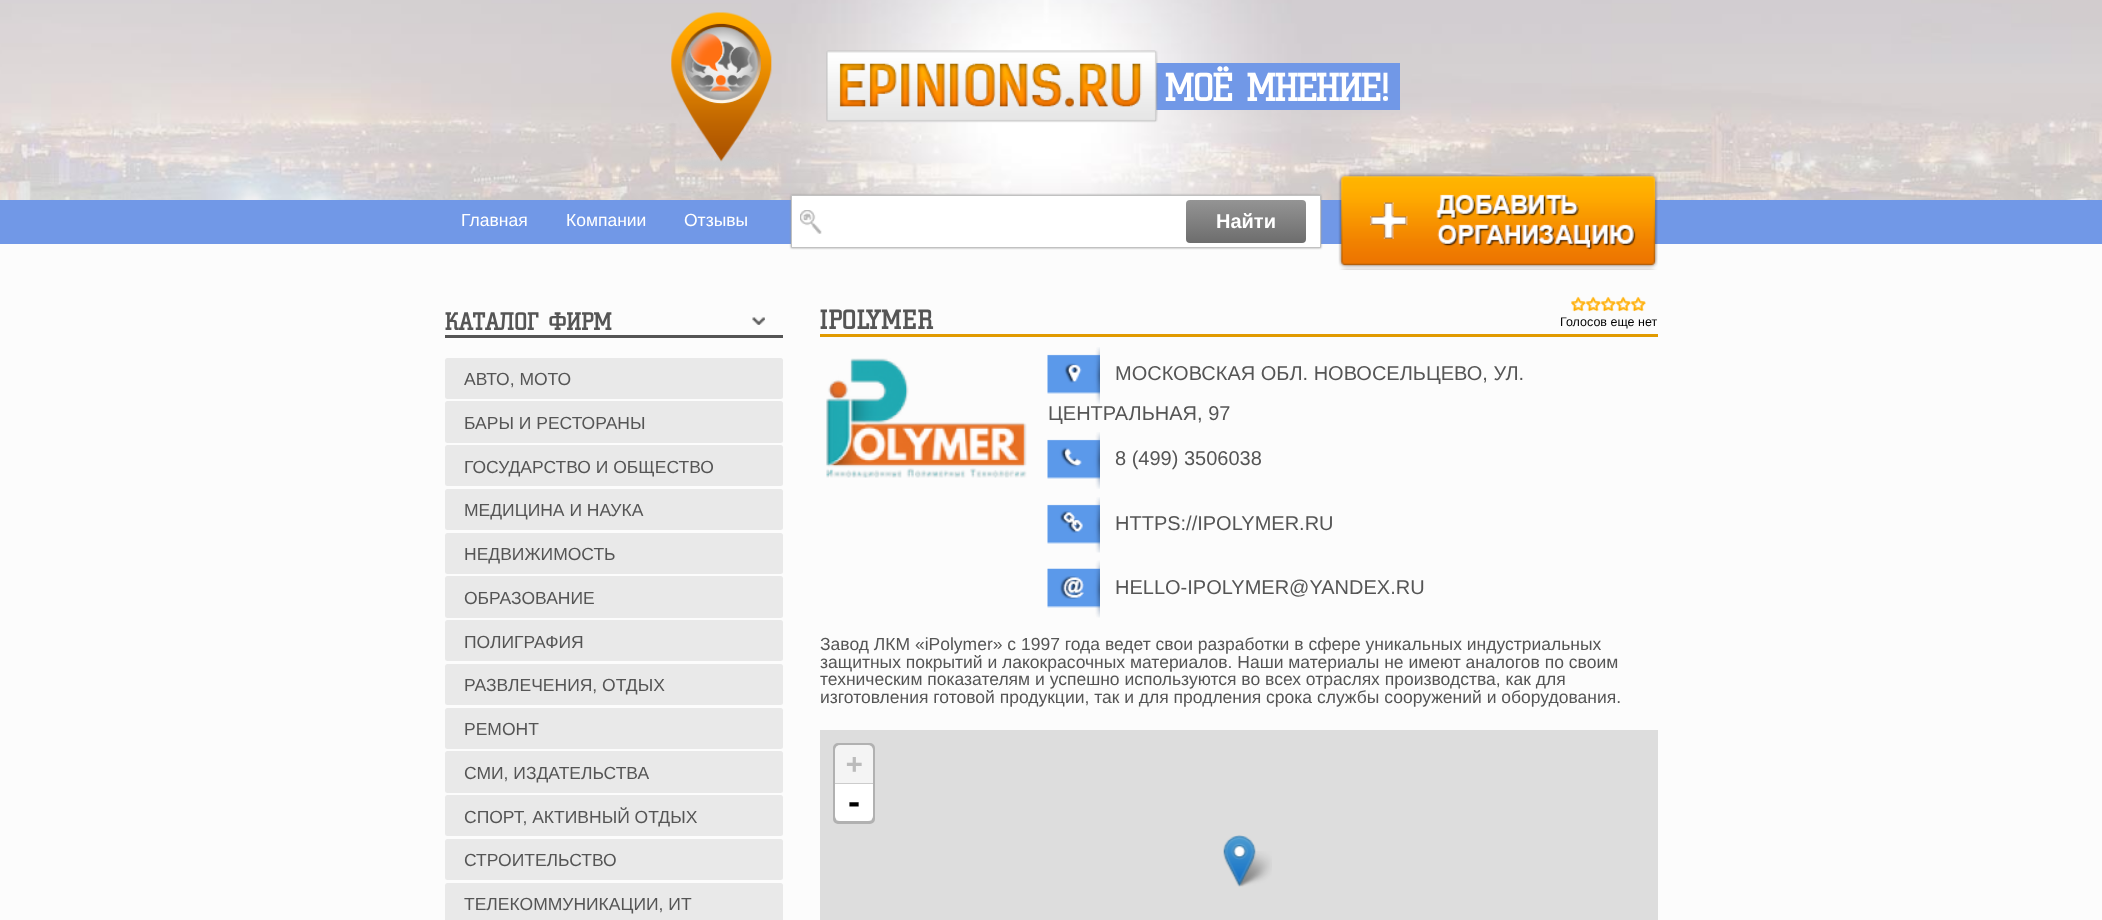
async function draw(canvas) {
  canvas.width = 2102
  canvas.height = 920
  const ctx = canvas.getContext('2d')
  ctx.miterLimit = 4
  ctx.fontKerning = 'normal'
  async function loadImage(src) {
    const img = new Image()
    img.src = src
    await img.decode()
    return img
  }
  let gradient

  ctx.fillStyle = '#fcfcfc'
  ctx.fillRect(0, 0, 2102, 920)
  ctx.drawImage(await loadImage('image0.png'), 0, 0, 2102, 200)
  ctx.drawImage(await loadImage('image1.png'), 669, 12, 109, 159)
  ctx.fillStyle = '#7198e7'
  ctx.fillRect(1156, 63, 244, 47)
  ctx.drawImage(await loadImage('image2.png'), 826, 50, 332, 73)
  ctx.letterSpacing = '-1.25px'
  ctx.font = '40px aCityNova'
  ctx.fillStyle = '#fff'
  ctx.fillText('МОЁ МНЕНИЕ!', 1165, 101)
  ctx.fillStyle = '#7198e7'
  ctx.fillRect(0, 200, 2102, 44)
  ctx.letterSpacing = '0px'
  ctx.font = '17.5px Liberation Sans'
  ctx.fillStyle = '#fff'
  ctx.fillText('Главная', 461, 226)
  ctx.fillText('Компании', 566, 226)
  ctx.fillText('Отзывы', 684, 226)
  ctx.fillStyle = '#9c9c9c'
  ctx.filter = 'blur(1px)'
  ctx.beginPath()
  ctx.rect(791, 195, 530, 53)
  ctx.fill()
  ctx.filter = 'none'
  ctx.fillStyle = '#fff'
  ctx.beginPath()
  ctx.rect(791.5, 195.5, 529, 52)
  ctx.fill()
  ctx.strokeStyle = '#c1c1c1'
  ctx.stroke()
  ctx.drawImage(await loadImage('image3.png'), 800, 210, 22, 24)
  gradient = ctx.createLinearGradient(1246, 200, 1246, 243)
  gradient.addColorStop(0, '#949494')
  gradient.addColorStop(1, '#6d6d6d')
  ctx.fillStyle = gradient
  ctx.beginPath()
  ctx.roundRect(1186, 200, 120, 43, 4)
  ctx.fill()
  ctx.font = 'bold 20px Liberation Sans'
  ctx.fillStyle = '#fff'
  ctx.fillText('Найти', 1216, 228)
  ctx.drawImage(await loadImage('image4.png'), 1338, 173, 320, 97)
  ctx.fillStyle = '#555'
  ctx.fillRect(445, 335, 338, 3)
  ctx.font = '25px aCityNova'
  ctx.fillText('КАТАЛОГ ФИРМ', 445, 330)
  ctx.drawImage(await loadImage('image5.png'), 752, 317, 13, 8)
  ctx.fillStyle = '#e9e9e9'
  ctx.beginPath()
  ctx.roundRect(445, 358, 338, 41, 2.5)
  ctx.fill()
  ctx.font = '17.5px Liberation Sans'
  ctx.fillStyle = '#555'
  ctx.fillText('АВТО, МОТО', 464, 385)
  ctx.fillStyle = '#e9e9e9'
  ctx.beginPath()
  ctx.roundRect(445, 401, 338, 42, 2.5)
  ctx.fill()
  ctx.fillStyle = '#555'
  ctx.fillText('БАРЫ И РЕСТОРАНЫ', 464, 429)
  ctx.fillStyle = '#e9e9e9'
  ctx.beginPath()
  ctx.roundRect(445, 445, 338, 41, 2.5)
  ctx.fill()
  ctx.fillStyle = '#555'
  ctx.fillText('ГОСУДАРСТВО И ОБЩЕСТВО', 464, 473)
  ctx.fillStyle = '#e9e9e9'
  ctx.beginPath()
  ctx.roundRect(445, 489, 338, 41, 2.5)
  ctx.fill()
  ctx.fillStyle = '#555'
  ctx.fillText('МЕДИЦИНА И НАУКА', 464, 516)
  ctx.fillStyle = '#e9e9e9'
  ctx.beginPath()
  ctx.roundRect(445, 533, 338, 41, 2.5)
  ctx.fill()
  ctx.fillStyle = '#555'
  ctx.fillText('НЕДВИЖИМОСТЬ', 464, 560)
  ctx.fillStyle = '#e9e9e9'
  ctx.beginPath()
  ctx.roundRect(445, 576, 338, 42, 2.5)
  ctx.fill()
  ctx.fillStyle = '#555'
  ctx.fillText('ОБРАЗОВАНИЕ', 464, 604)
  ctx.fillStyle = '#e9e9e9'
  ctx.beginPath()
  ctx.roundRect(445, 620, 338, 41, 2.5)
  ctx.fill()
  ctx.fillStyle = '#555'
  ctx.fillText('ПОЛИГРАФИЯ', 464, 648)
  ctx.fillStyle = '#e9e9e9'
  ctx.beginPath()
  ctx.roundRect(445, 664, 338, 41, 2.5)
  ctx.fill()
  ctx.fillStyle = '#555'
  ctx.fillText('РАЗВЛЕЧЕНИЯ, ОТДЫХ', 464, 691)
  ctx.fillStyle = '#e9e9e9'
  ctx.beginPath()
  ctx.roundRect(445, 708, 338, 41, 2.5)
  ctx.fill()
  ctx.fillStyle = '#555'
  ctx.fillText('РЕМОНТ', 464, 735)
  ctx.fillStyle = '#e9e9e9'
  ctx.beginPath()
  ctx.roundRect(445, 751, 338, 42, 2.5)
  ctx.fill()
  ctx.fillStyle = '#555'
  ctx.fillText('СМИ, ИЗДАТЕЛЬСТВА', 464, 779)
  ctx.fillStyle = '#e9e9e9'
  ctx.beginPath()
  ctx.roundRect(445, 795, 338, 41, 2.5)
  ctx.fill()
  ctx.fillStyle = '#555'
  ctx.fillText('СПОРТ, АКТИВНЫЙ ОТДЫХ', 464, 823)
  ctx.fillStyle = '#e9e9e9'
  ctx.beginPath()
  ctx.roundRect(445, 839, 338, 41, 2.5)
  ctx.fill()
  ctx.fillStyle = '#555'
  ctx.fillText('СТРОИТЕЛЬСТВО', 464, 866)
  ctx.fillStyle = '#e9e9e9'
  ctx.beginPath()
  ctx.roundRect(445, 883, 338, 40, 2.5)
  ctx.fill()
  ctx.fillStyle = '#555'
  ctx.fillText('ТЕЛЕКОММУНИКАЦИИ, ИТ', 464, 910)
  ctx.fillStyle = '#e19a00'
  ctx.fillRect(820, 334, 838, 3)
  ctx.font = '27.5px aCityNova'
  ctx.fillStyle = '#555'
  ctx.fillText('IPOLYMER', 820, 329)
  ctx.drawImage(await loadImage('image6.png'), 1571, 296, 16, 16)
  ctx.drawImage(await loadImage('image7.png'), 1571, 296, 15, 16)
  ctx.drawImage(await loadImage('image8.png'), 1586, 296, 16, 16)
  ctx.drawImage(await loadImage('image9.png'), 1586, 296, 15, 16)
  ctx.drawImage(await loadImage('image8.png'), 1601, 296, 16, 16)
  ctx.drawImage(await loadImage('image10.png'), 1601, 297, 15, 14)
  ctx.drawImage(await loadImage('image8.png'), 1616, 296, 16, 16)
  ctx.drawImage(await loadImage('image9.png'), 1616, 296, 15, 16)
  ctx.drawImage(await loadImage('image11.png'), 1631, 296, 15, 16)
  ctx.drawImage(await loadImage('image10.png'), 1631, 297, 15, 14)
  ctx.font = '12.5px Liberation Sans'
  ctx.fillStyle = '#000'
  ctx.fillText('Голосов еще нет', 1560, 326)
  ctx.drawImage(await loadImage('image12.png'), 826, 358, 201, 120)
  ctx.drawImage(await loadImage('image13.png'), 1047, 347, 53, 57)
  ctx.font = '20px Liberation Sans'
  ctx.fillStyle = '#555'
  ctx.fillText('МОСКОВСКАЯ ОБЛ. НОВОСЕЛЬЦЕВО, УЛ.', 1115, 380)
  ctx.fillText('ЦЕНТРАЛЬНАЯ, 97', 1048, 420)
  ctx.drawImage(await loadImage('image14.png'), 1047, 432, 53, 57)
  ctx.fillText('8 (499) 3506038', 1115, 465)
  ctx.drawImage(await loadImage('image15.png'), 1047, 497, 53, 56)
  ctx.fillText('HTTPS://IPOLYMER.RU', 1115, 530)
  ctx.drawImage(await loadImage('image16.png'), 1047, 560, 53, 58)
  ctx.fillText('HELLO-IPOLYMER@YANDEX.RU', 1115, 594)
  ctx.font = '17.5px Liberation Sans'
  ctx.fillText('Завод ЛКМ «iPolymer» с 1997 года ведет свои разработки в сфере уникальных индустриальных', 820, 650)
  ctx.fillText('защитных покрытий и лакокрасочных материалов. Наши материалы не имеют аналогов по своим', 820, 668)
  ctx.fillText('техническим показателям и успешно используются во всех отраслях производства, как для', 820, 685)
  ctx.fillText('изготовления готовой продукции, так и для продления срока службы сооружений и оборудования.', 820, 703)
  ctx.fillStyle = '#ddd'
  ctx.fillRect(820, 730, 838, 190)
  ctx.beginPath()
  ctx.roundRect(834.5, 744.5, 39, 78, 3.5)
  ctx.strokeStyle = '#b1b1b1'
  ctx.lineWidth = 3
  ctx.stroke()
  ctx.fillStyle = '#f4f4f4'
  ctx.beginPath()
  ctx.roundRect(835, 745, 38, 39, [5, 5, 0, 0])
  ctx.fill()
  ctx.fillStyle = '#ccc'
  ctx.fillRect(835, 783, 38, 1)
  ctx.font = 'bold 27.5px DejaVu Sans Mono'
  ctx.fillStyle = '#bbb'
  ctx.fillText('+', 846, 773)
  ctx.fillStyle = '#fff'
  ctx.beginPath()
  ctx.roundRect(835, 784, 38, 37, [0, 0, 5, 5])
  ctx.fill()
  ctx.font = 'bold 30px DejaVu Sans Mono'
  ctx.fillStyle = '#000'
  ctx.fillText('-', 845, 813)
  ctx.drawImage(await loadImage('image18.png'), 1235, 851, 37, 36)
  ctx.drawImage(await loadImage('image17.png'), 1223, 835, 33, 52)
}

draw(document.querySelector('canvas'))
